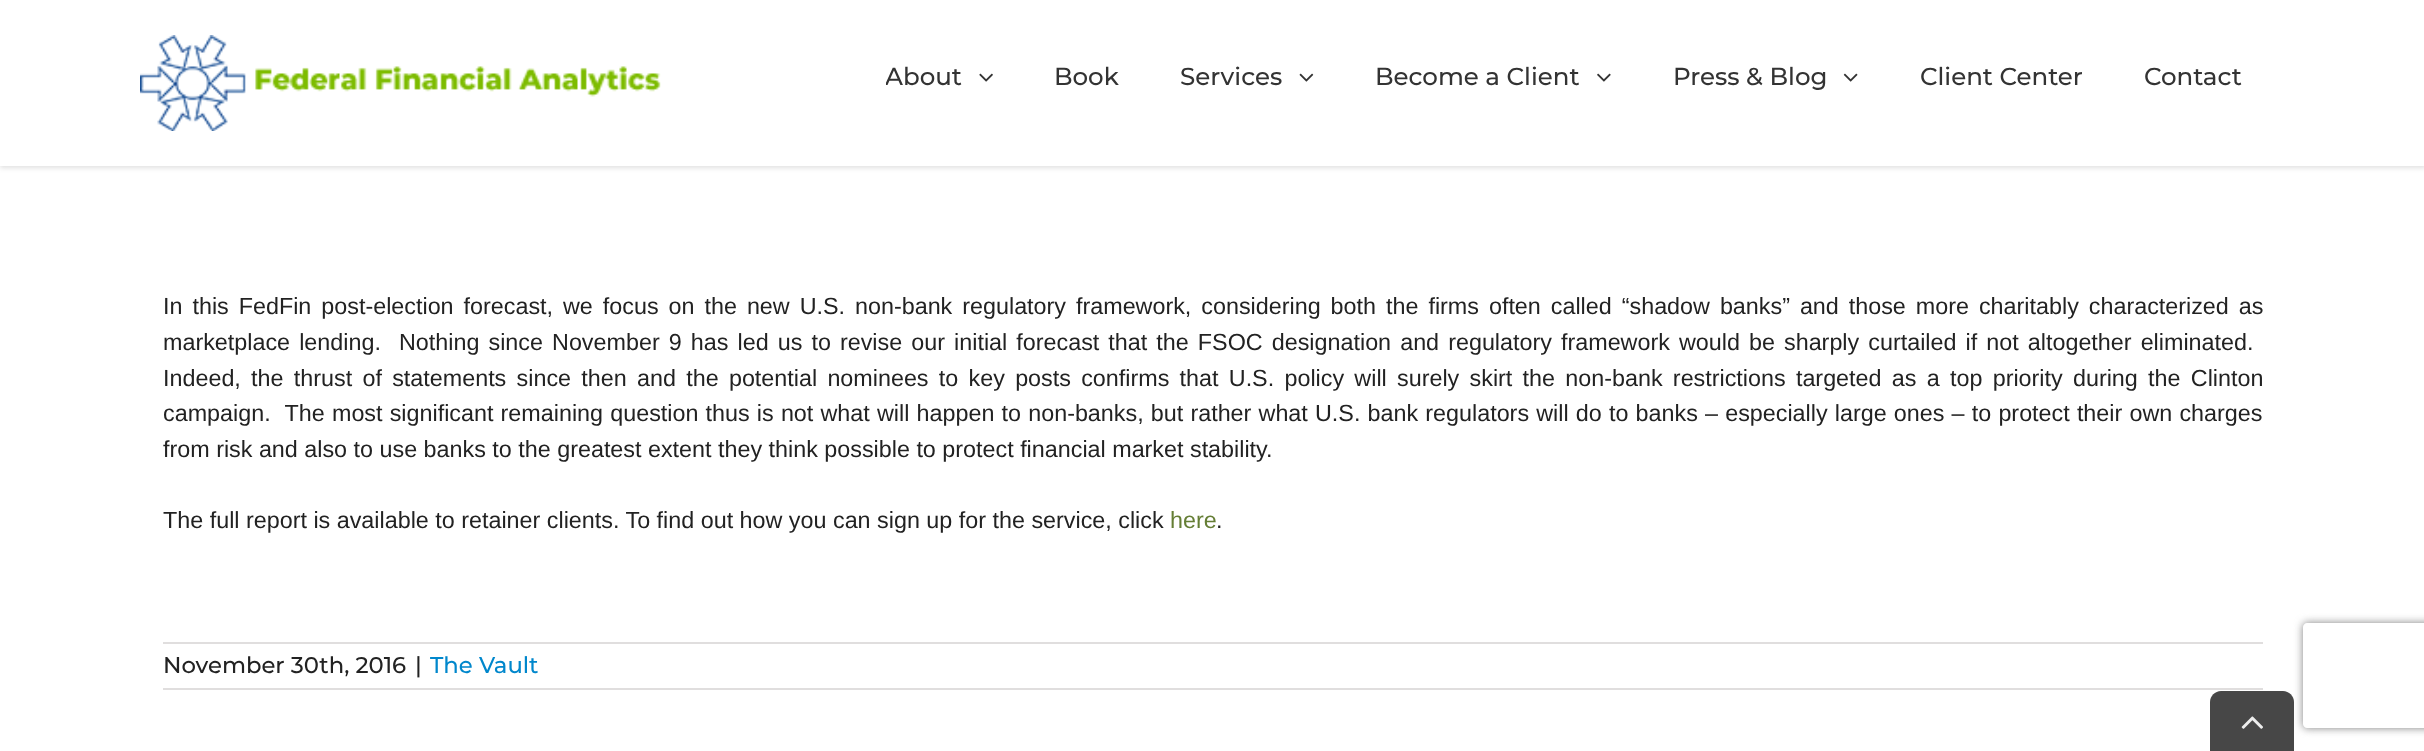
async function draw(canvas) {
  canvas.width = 2424
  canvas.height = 751
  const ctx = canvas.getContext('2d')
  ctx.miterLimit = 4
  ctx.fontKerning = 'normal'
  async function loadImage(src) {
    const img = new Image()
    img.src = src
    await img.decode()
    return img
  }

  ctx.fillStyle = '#fff'
  ctx.fillRect(0, 0, 2424, 751)
  ctx.fillStyle = '#0000001f'
  ctx.filter = 'blur(2.5px)'
  ctx.beginPath()
  ctx.rect(0, 2, 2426, 166)
  ctx.fill()
  ctx.filter = 'none'
  ctx.fillStyle = '#fff'
  ctx.fillRect(0, 0, 2424, 166)
  ctx.drawImage(await loadImage('image0.png'), 140, 35, 521, 96)
  ctx.save()
  ctx.beginPath()
  ctx.rect(886, 0, 169, 147)
  ctx.clip()
  ctx.font = '500 24.5px Montserrat'
  ctx.fillStyle = '#333'
  ctx.fillText('About', 885, 85)
  ctx.restore()
  ctx.drawImage(await loadImage('image1.png'), 979, 73, 14, 9)
  ctx.font = '500 24.5px Montserrat'
  ctx.fillStyle = '#333'
  ctx.fillText('Book', 1054, 85)
  ctx.fillText('Services', 1180, 85)
  ctx.drawImage(await loadImage('image2.png'), 1299, 73, 15, 9)
  ctx.fillText('Become a Client', 1375, 85)
  ctx.drawImage(await loadImage('image3.png'), 1597, 73, 14, 9)
  ctx.fillText('Press & Blog', 1673, 85)
  ctx.drawImage(await loadImage('image4.png'), 1843, 73, 15, 9)
  ctx.fillText('Client Center', 1920, 85)
  ctx.fillText('Contact', 2144, 85)
  ctx.wordSpacing = '3.5px'
  ctx.font = '23.33px Liberation Sans'
  ctx.fillStyle = '#222'
  ctx.fillText('In this FedFin post-election forecast, we focus on the new U.S. non-bank regulatory framework, considering both the firms often called “shadow banks” and those more charitably characterized as', 163, 314)
  ctx.wordSpacing = '2.6px'
  ctx.fillText('marketplace lending.  Nothing since November 9 has led us to revise our initial forecast that the FSOC designation and regulatory framework would be sharply curtailed if not altogether eliminated.', 163, 350)
  ctx.wordSpacing = '3.8px'
  ctx.fillText('Indeed, the thrust of statements since then and the potential nominees to key posts confirms that U.S. policy will surely skirt the non-bank restrictions targeted as a top priority during the Clinton', 163, 386)
  ctx.wordSpacing = '0.7px'
  ctx.fillText('campaign.  The most significant remaining question thus is not what will happen to non-banks, but rather what U.S. bank regulators will do to banks – especially large ones – to protect their own charges', 163, 421)
  ctx.wordSpacing = '0px'
  ctx.fillText('from risk and also to use banks to the greatest extent they think possible to protect financial market stability.', 163, 457)
  ctx.fillText('The full report is available to retainer clients. To find out how you can sign up for the service, click', 163, 528)
  ctx.fillStyle = '#657e35'
  ctx.fillText('here', 1170, 528)
  ctx.fillStyle = '#222'
  ctx.fillText('.', 1216, 528)
  ctx.fillStyle = '#e0dede'
  ctx.fillRect(163, 642, 2100, 2)
  ctx.fillRect(163, 688, 2100, 2)
  ctx.font = '500 22.75px Montserrat'
  ctx.fillStyle = '#222'
  ctx.fillText('November 30th, 2016', 163, 673)
  ctx.fillText('|', 415, 673)
  ctx.fillStyle = '#0087cc'
  ctx.fillText('The Vault', 430, 673)
  ctx.save()
  ctx.beginPath()
  ctx.moveTo(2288, 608)
  ctx.lineTo(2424, 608)
  ctx.lineTo(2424, 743)
  ctx.lineTo(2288, 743)
  ctx.closePath()
  ctx.moveTo(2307, 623)
  ctx.lineTo(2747, 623)
  ctx.bezierCurveTo(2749, 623, 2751, 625, 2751, 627)
  ctx.lineTo(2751, 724)
  ctx.bezierCurveTo(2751, 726, 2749, 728, 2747, 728)
  ctx.lineTo(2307, 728)
  ctx.bezierCurveTo(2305, 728, 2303, 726, 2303, 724)
  ctx.lineTo(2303, 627)
  ctx.bezierCurveTo(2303, 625, 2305, 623, 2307, 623)
  ctx.closePath()
  ctx.clip('evenodd')
  ctx.fillStyle = '#808080'
  ctx.filter = 'blur(4.5px)'
  ctx.beginPath()
  ctx.roundRect(2303, 623, 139, 105, 4)
  ctx.fill()
  ctx.filter = 'none'
  ctx.restore()
  ctx.fillStyle = '#474747'
  ctx.beginPath()
  ctx.moveTo(2221, 691)
  ctx.lineTo(2283, 691)
  ctx.bezierCurveTo(2289, 691, 2294, 696, 2294, 702)
  ctx.lineTo(2294, 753)
  ctx.lineTo(2210, 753)
  ctx.lineTo(2210, 702)
  ctx.bezierCurveTo(2210, 696, 2215, 691, 2221, 691)
  ctx.closePath()
  ctx.fill()
  ctx.drawImage(await loadImage('image5.png'), 2241, 716, 22, 13)
}

draw(document.querySelector('canvas'))
